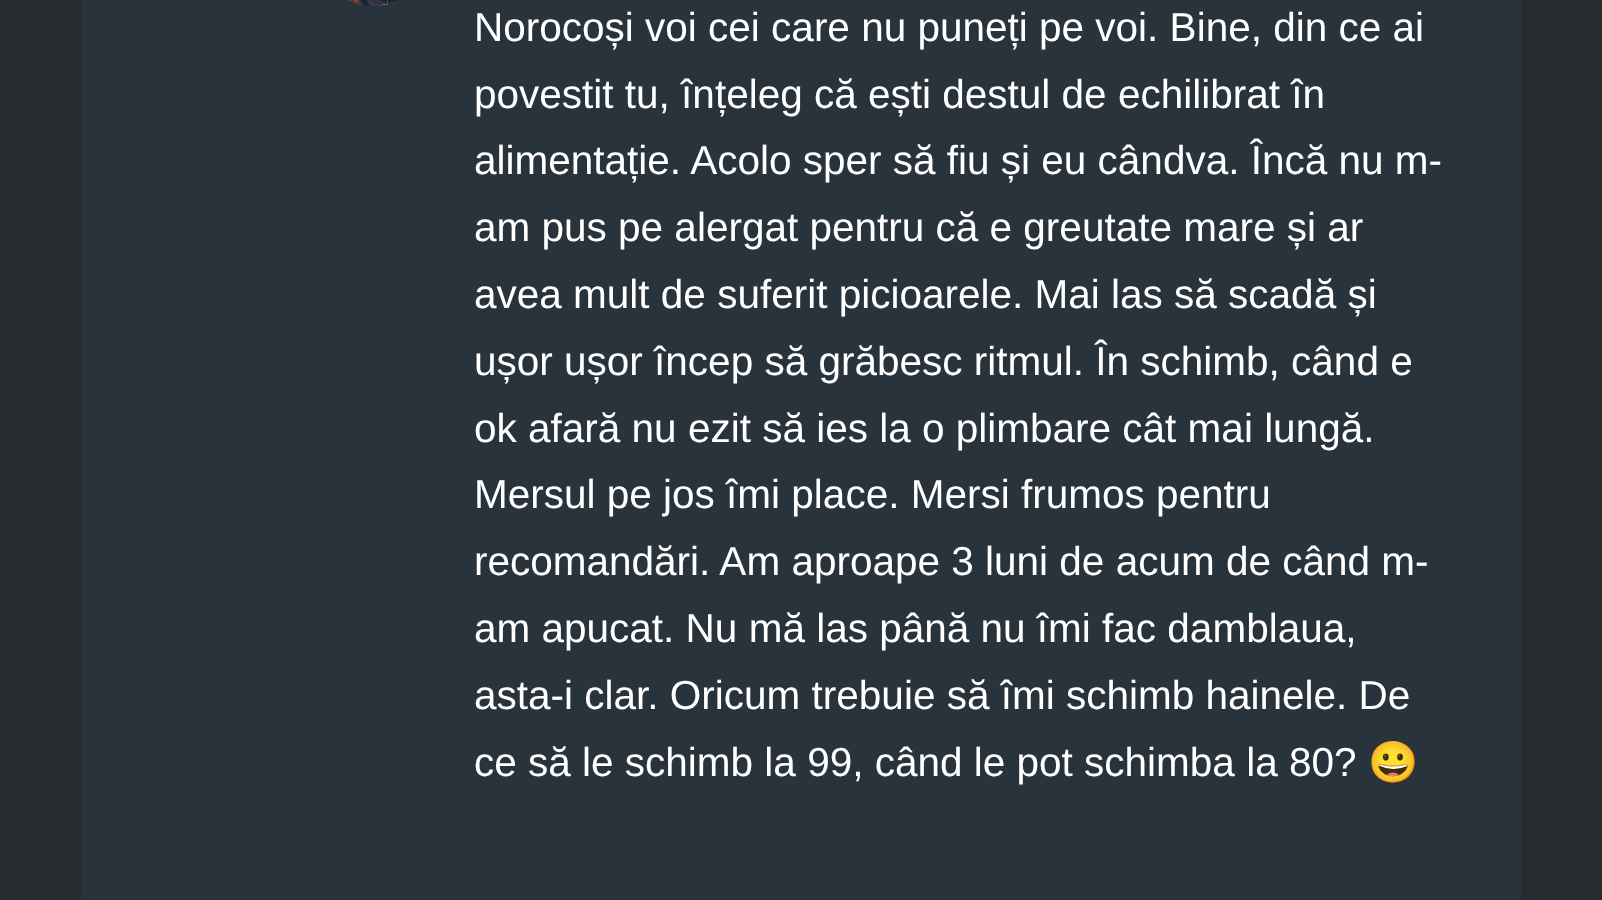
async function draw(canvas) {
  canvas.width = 1602
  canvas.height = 900
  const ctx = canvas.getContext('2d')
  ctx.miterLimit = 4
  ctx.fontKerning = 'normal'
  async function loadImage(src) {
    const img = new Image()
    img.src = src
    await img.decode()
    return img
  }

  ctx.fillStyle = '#272b2f'
  ctx.fillRect(0, 0, 1602, 900)
  ctx.fillStyle = '#29333c'
  ctx.fillRect(81, 0, 1440, 900)
  ctx.drawImage(await loadImage('image0.png'), 348, 0, 51, 6)
  ctx.font = '40.5px Liberation Sans'
  ctx.fillStyle = '#fff'
  ctx.fillText('Norocoși voi cei care nu puneți pe voi. Bine, din ce ai', 474, 41)
  ctx.fillText('povestit tu, înțeleg că ești destul de echilibrat în', 474, 108)
  ctx.fillText('alimentație. Acolo sper să fiu și eu cândva. Încă nu m-', 474, 174)
  ctx.fillText('am pus pe alergat pentru că e greutate mare și ar', 474, 241)
  ctx.fillText('avea mult de suferit picioarele. Mai las să scadă și', 474, 308)
  ctx.fillText('ușor ușor încep să grăbesc ritmul. În schimb, când e', 474, 375)
  ctx.fillText('ok afară nu ezit să ies la o plimbare cât mai lungă.', 474, 442)
  ctx.fillText('Mersul pe jos îmi place. Mersi frumos pentru', 474, 508)
  ctx.fillText('recomandări. Am aproape 3 luni de acum de când m-', 474, 575)
  ctx.fillText('am apucat. Nu mă las până nu îmi fac damblaua,', 474, 642)
  ctx.fillText('asta-i clar. Oricum trebuie să îmi schimb hainele. De', 474, 709)
  ctx.fillText('ce să le schimb la 99, când le pot schimba la 80?', 474, 776)
  ctx.font = '40.5px Noto Color Emoji'
  ctx.fillText('😀', 1368, 776)
}

draw(document.querySelector('canvas'))
